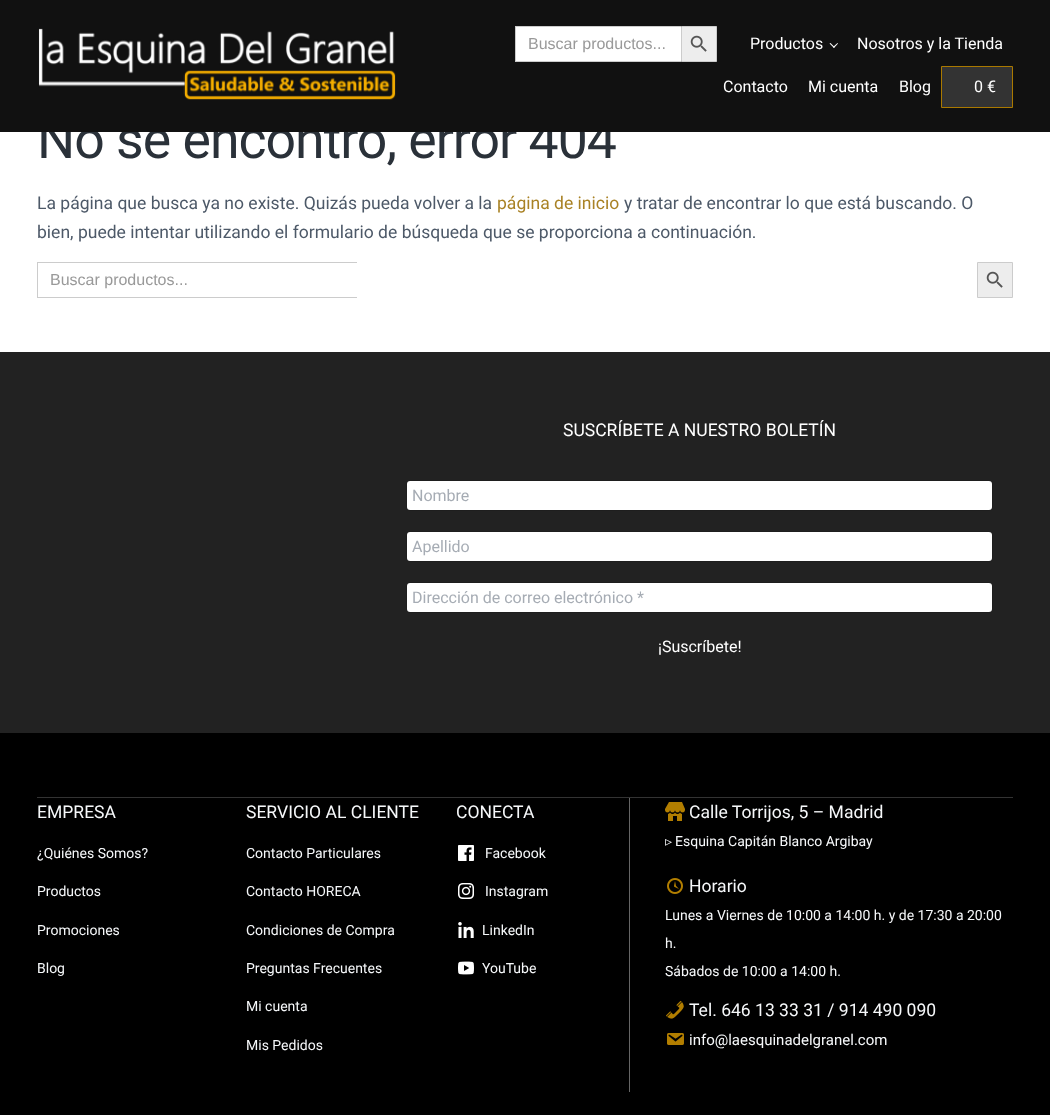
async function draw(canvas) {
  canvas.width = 1050
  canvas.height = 1115
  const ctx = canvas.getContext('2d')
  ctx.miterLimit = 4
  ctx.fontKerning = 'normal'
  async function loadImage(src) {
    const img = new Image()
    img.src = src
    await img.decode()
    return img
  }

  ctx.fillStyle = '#fff'
  ctx.fillRect(0, 0, 1050, 1115)
  ctx.letterSpacing = '-1px'
  ctx.font = '53.6px Roboto'
  ctx.fillStyle = '#2a3139'
  ctx.fillText('No se encontró, error 404', 37, 158)
  ctx.fillStyle = '#111'
  ctx.fillRect(0, 0, 1050, 132)
  ctx.drawImage(await loadImage('image0.png'), 38, 28, 358, 72)
  ctx.fillStyle = '#fff'
  ctx.fillRect(516, 27, 165, 34)
  ctx.fillStyle = '#ccc'
  ctx.fillRect(515, 26, 166, 1)
  ctx.fillRect(515, 61, 166, 1)
  ctx.fillRect(515, 26, 1, 36)
  ctx.letterSpacing = '0px'
  ctx.font = '16px Liberation Sans'
  ctx.fillStyle = '#999'
  ctx.fillText('Buscar productos...', 528, 49)
  ctx.fillStyle = '#ededed'
  ctx.beginPath()
  ctx.rect(681.5, 26.5, 35, 35)
  ctx.fill()
  ctx.strokeStyle = '#ccc'
  ctx.stroke()
  ctx.drawImage(await loadImage('image1.png'), 690, 35, 17, 17)
  ctx.font = '16px Roboto'
  ctx.fillStyle = '#fff'
  ctx.fillText('Productos', 750, 49)
  ctx.beginPath()
  ctx.moveTo(837.5, 43)
  ctx.lineTo(838, 43.5)
  ctx.lineTo(834, 48)
  ctx.lineTo(833, 47)
  ctx.closePath()
  ctx.fill()
  ctx.beginPath()
  ctx.moveTo(830.5, 43)
  ctx.lineTo(834.5, 47)
  ctx.lineTo(834, 48)
  ctx.lineTo(829.5, 43.5)
  ctx.closePath()
  ctx.fill()
  ctx.fillText('Nosotros y la Tienda', 857, 49)
  ctx.fillText('Contacto', 723, 92)
  ctx.fillText('Mi cuenta', 808, 92)
  ctx.fillText('Blog', 899, 92)
  ctx.fillStyle = '#333'
  ctx.beginPath()
  ctx.rect(941.5, 66.5, 71, 41)
  ctx.fill()
  ctx.strokeStyle = '#aa7900'
  ctx.stroke()
  ctx.fillStyle = '#fff'
  ctx.fillText('0 €', 974, 92)
  ctx.font = '17.55px Roboto'
  ctx.fillStyle = '#4d5968'
  ctx.fillText('La página que busca ya no existe. Quizás pueda volver a la', 37, 209)
  ctx.fillStyle = '#a98225'
  ctx.fillText('página de inicio', 497, 209)
  ctx.fillStyle = '#4d5968'
  ctx.fillText('y tratar de encontrar lo que está buscando. O', 624, 209)
  ctx.fillText('bien, puede intentar utilizando el formulario de búsqueda que se proporciona a continuación.', 37, 238)
  ctx.fillStyle = '#ccc'
  ctx.fillRect(37, 262, 320, 1)
  ctx.fillRect(37, 297, 320, 1)
  ctx.fillRect(37, 262, 1, 36)
  ctx.font = '16px Liberation Sans'
  ctx.fillStyle = '#999'
  ctx.fillText('Buscar productos...', 50, 285)
  ctx.fillStyle = '#ededed'
  ctx.beginPath()
  ctx.rect(977.5, 262.5, 35, 35)
  ctx.fill()
  ctx.strokeStyle = '#ccc'
  ctx.stroke()
  ctx.drawImage(await loadImage('image1.png'), 986, 271, 17, 17)
  ctx.fillStyle = '#222'
  ctx.fillRect(0, 352, 1050, 381)
  ctx.font = '17.55px Roboto'
  ctx.fillStyle = '#fff'
  ctx.fillText('SUSCRÍBETE A NUESTRO BOLETÍN', 563, 436)
  ctx.beginPath()
  ctx.roundRect(407, 481, 585, 29, 3)
  ctx.fill()
  ctx.beginPath()
  ctx.roundRect(406.5, 480.5, 586, 30, 3.5)
  ctx.strokeStyle = '#0000001a'
  ctx.stroke()
  ctx.font = '16px Roboto'
  ctx.fillStyle = '#a6acb4'
  ctx.fillText('Nombre', 412, 501)
  ctx.fillStyle = '#fff'
  ctx.beginPath()
  ctx.roundRect(407, 532, 585, 29, 3)
  ctx.fill()
  ctx.beginPath()
  ctx.roundRect(406.5, 531.5, 586, 30, 3.5)
  ctx.stroke()
  ctx.fillStyle = '#a6acb4'
  ctx.fillText('Apellido', 412, 552)
  ctx.fillStyle = '#fff'
  ctx.beginPath()
  ctx.roundRect(407, 583, 585, 29, 3)
  ctx.fill()
  ctx.beginPath()
  ctx.roundRect(406.5, 582.5, 586, 30, 3.5)
  ctx.stroke()
  ctx.fillStyle = '#a6acb4'
  ctx.fillText('Dirección de correo electrónico *', 412, 603)
  ctx.fillStyle = '#fff'
  ctx.fillText('¡Suscríbete!', 658, 652)
  ctx.fillStyle = '#000'
  ctx.fillRect(0, 733, 1050, 382)
  ctx.fillStyle = '#333'
  ctx.fillRect(37, 797, 976, 1)
  ctx.font = '17.55px Roboto'
  ctx.fillStyle = '#f6f8fa'
  ctx.fillText('EMPRESA', 37, 818)
  ctx.font = '14px Roboto'
  ctx.fillText('¿Quiénes Somos?', 37, 858)
  ctx.fillText('Productos', 37, 896)
  ctx.fillText('Promociones', 37, 935)
  ctx.fillText('Blog', 37, 973)
  ctx.font = '17.55px Roboto'
  ctx.fillText('SERVICIO AL CLIENTE', 246, 818)
  ctx.font = '14px Roboto'
  ctx.fillText('Contacto Particulares', 246, 858)
  ctx.fillText('Contacto HORECA', 246, 896)
  ctx.fillText('Condiciones de Compra', 246, 935)
  ctx.fillText('Preguntas Frecuentes', 246, 973)
  ctx.fillText('Mi cuenta', 246, 1011)
  ctx.fillText('Mis Pedidos', 246, 1050)
  ctx.fillStyle = '#666'
  ctx.fillRect(629, 798, 1, 294)
  ctx.font = '17.55px Roboto'
  ctx.fillStyle = '#f6f8fa'
  ctx.fillText('CONECTA', 456, 818)
  ctx.drawImage(await loadImage('image2.png'), 458, 845, 16, 16)
  ctx.font = '14px Roboto'
  ctx.fillText('Facebook', 485, 858)
  ctx.drawImage(await loadImage('image3.png'), 458, 883, 16, 16)
  ctx.fillText('Instagram', 485, 896)
  ctx.drawImage(await loadImage('image4.png'), 458, 922, 16, 16)
  ctx.fillText('LinkedIn', 482, 935)
  ctx.drawImage(await loadImage('image5.png'), 458, 961, 16, 14)
  ctx.fillText('YouTube', 482, 973)
  ctx.drawImage(await loadImage('image6.png'), 665, 802, 20, 19)
  ctx.font = '17.55px Roboto'
  ctx.fillText('Calle Torrijos, 5 – Madrid', 689, 818)
  ctx.font = '14px DejaVu Sans'
  ctx.fillText('▹', 665, 846)
  ctx.font = '14px Roboto'
  ctx.fillText('Esquina Capitán Blanco Argibay', 675, 846)
  ctx.drawImage(await loadImage('image7.png'), 667, 878, 16, 16)
  ctx.font = '17.55px Roboto'
  ctx.fillText('Horario', 689, 892)
  ctx.font = '14px Roboto'
  ctx.fillText('Lunes a Viernes de 10:00 a 14:00 h. y de 17:30 a 20:00', 665, 920)
  ctx.fillText('h.', 665, 948)
  ctx.fillText('Sábados de 10:00 a 14:00 h.', 665, 976)
  ctx.drawImage(await loadImage('image8.png'), 666, 1000, 18, 19)
  ctx.font = '17.55px Roboto'
  ctx.fillText('Tel. 646 13 33 31 / 914 490 090', 689, 1016)
  ctx.drawImage(await loadImage('image9.png'), 667, 1033, 17, 12)
  ctx.font = '15px Roboto'
  ctx.fillText('info@laesquinadelgranel.com', 689, 1045)
}

draw(document.querySelector('canvas'))
